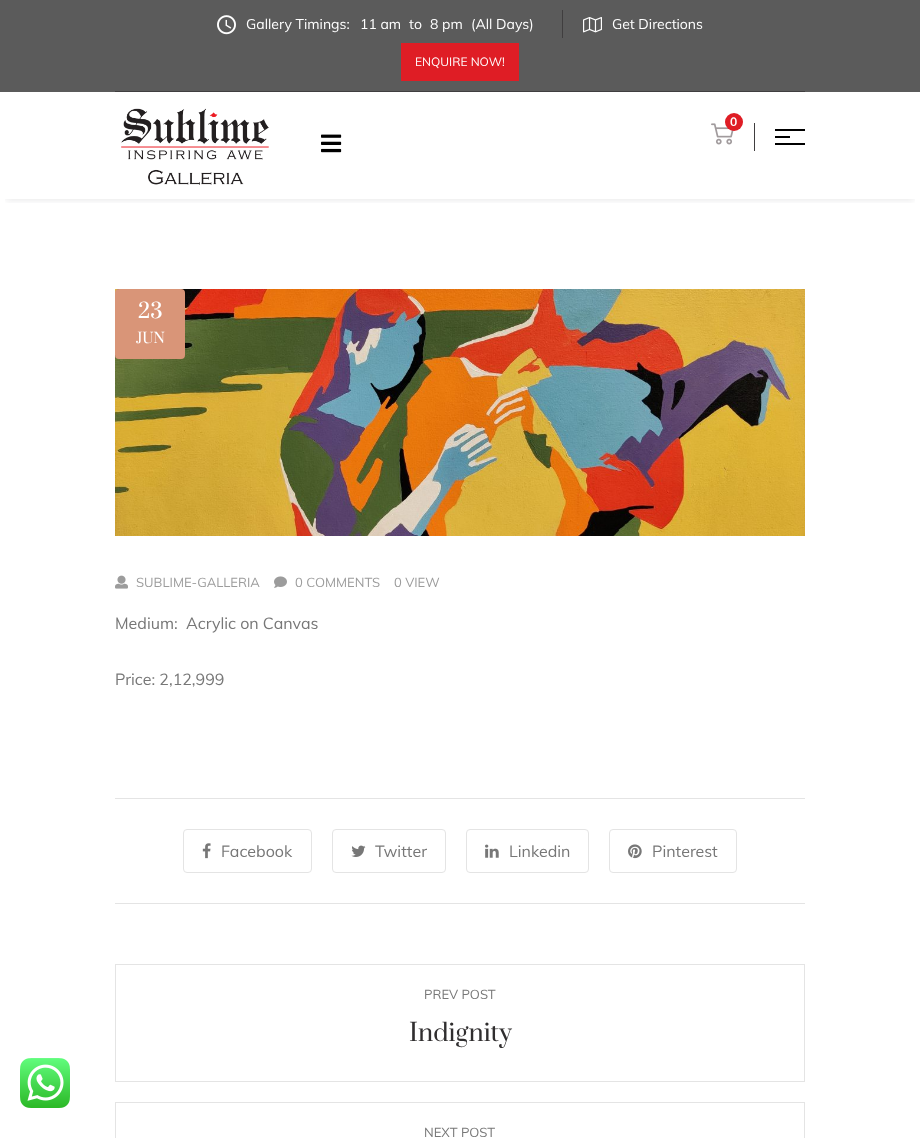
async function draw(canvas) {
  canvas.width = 920
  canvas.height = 1138
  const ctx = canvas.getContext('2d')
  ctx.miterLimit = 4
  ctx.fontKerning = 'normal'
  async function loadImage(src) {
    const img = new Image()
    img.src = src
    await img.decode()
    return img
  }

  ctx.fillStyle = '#fff'
  ctx.fillRect(0, 0, 920, 1138)
  ctx.drawImage(await loadImage('image0.png'), 20, 1058, 50, 50)
  ctx.fillStyle = '#5b5b5b'
  ctx.fillRect(0, 0, 920, 92)
  ctx.fillStyle = '#403e3f'
  ctx.fillRect(115, 91, 690, 1)
  ctx.drawImage(await loadImage('image1.png'), 217, 15, 19, 20)
  ctx.font = '14px Muli'
  ctx.fillStyle = '#fff'
  ctx.fillText('Gallery Timings:', 246, 29)
  ctx.fillText('11 am', 360, 29)
  ctx.fillText('to', 409, 29)
  ctx.fillText('8 pm', 430, 29)
  ctx.fillText('(All Days)', 471, 29)
  ctx.fillStyle = '#403e3f'
  ctx.fillRect(562, 10, 1, 28)
  ctx.drawImage(await loadImage('image2.png'), 583, 17, 19, 16)
  ctx.fillStyle = '#fff'
  ctx.fillText('Get Directions', 612, 29)
  ctx.fillStyle = '#df1d25'
  ctx.fillRect(401, 43, 118, 38)
  ctx.font = '12px Muli'
  ctx.fillStyle = '#fff'
  ctx.fillText('ENQUIRE NOW!', 415, 66)
  ctx.save()
  ctx.beginPath()
  ctx.rect(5, 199, 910, 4)
  ctx.clip()
  ctx.fillStyle = '#292c3a17'
  ctx.filter = 'blur(3px)'
  ctx.beginPath()
  ctx.rect(6, 106, 908, 95)
  ctx.fill()
  ctx.filter = 'none'
  ctx.restore()
  ctx.drawImage(await loadImage('image3.png'), 121, 108, 148, 77)
  ctx.drawImage(await loadImage('image4.png'), 321, 134, 21, 19)
  ctx.drawImage(await loadImage('image5.png'), 711, 123, 23, 22)
  ctx.fillStyle = '#df1d25'
  ctx.beginPath()
  ctx.arc(734, 122, 9, 0, 2 * Math.PI)
  ctx.fill()
  ctx.font = 'bold 12px Muli'
  ctx.fillStyle = '#fff'
  ctx.fillText('0', 730, 126)
  ctx.fillStyle = '#403e3f'
  ctx.fillRect(754, 123, 1, 28)
  ctx.fillStyle = '#000'
  ctx.fillRect(775, 129, 30, 2)
  ctx.fillRect(775, 136, 15, 2)
  ctx.fillRect(775, 143, 30, 2)
  ctx.drawImage(await loadImage('image6.png'), 115, 289, 690, 247)
  ctx.fillStyle = '#d99578'
  ctx.beginPath()
  ctx.roundRect(115, 289, 70, 70, 4)
  ctx.fill()
  ctx.font = '20px Prata'
  ctx.fillStyle = '#fff'
  ctx.fillText('23', 138, 318)
  ctx.font = '14px Prata'
  ctx.fillText('JUN', 136, 343)
  ctx.drawImage(await loadImage('image7.png'), 115, 575, 13, 14)
  ctx.font = '13px Muli'
  ctx.fillStyle = '#9c9c9c'
  ctx.fillText('SUBLIME-GALLERIA', 136, 587)
  ctx.drawImage(await loadImage('image8.png'), 274, 576, 13, 12)
  ctx.fillText('0 COMMENTS', 295, 587)
  ctx.fillText('0 VIEW', 394, 587)
  ctx.font = '16px Muli'
  ctx.fillStyle = '#777'
  ctx.fillText('Medium:  Acrylic on Canvas', 115, 629)
  ctx.fillText('Price: 2,12,999', 115, 685)
  ctx.fillStyle = '#e4e4e4'
  ctx.fillRect(115, 798, 690, 1)
  ctx.fillRect(115, 903, 690, 1)
  ctx.beginPath()
  ctx.roundRect(183.5, 829.5, 128, 43, 3.5)
  ctx.strokeStyle = '#e4e4e4'
  ctx.stroke()
  ctx.drawImage(await loadImage('image9.png'), 202, 843, 9, 16)
  ctx.fillStyle = '#777'
  ctx.fillText('Facebook', 221, 857)
  ctx.beginPath()
  ctx.roundRect(332.5, 829.5, 113, 43, 3.5)
  ctx.stroke()
  ctx.drawImage(await loadImage('image10.png'), 351, 845, 15, 12)
  ctx.fillText('Twitter', 375, 857)
  ctx.beginPath()
  ctx.roundRect(466.5, 829.5, 122, 43, 3.5)
  ctx.stroke()
  ctx.drawImage(await loadImage('image11.png'), 485, 844, 14, 14)
  ctx.fillText('Linkedin', 509, 857)
  ctx.beginPath()
  ctx.roundRect(609.5, 829.5, 127, 43, 3.5)
  ctx.stroke()
  ctx.drawImage(await loadImage('image12.png'), 628, 844, 14, 15)
  ctx.fillText('Pinterest', 652, 857)
  ctx.strokeRect(115.5, 964.5, 689, 117)
  ctx.font = '13px Muli'
  ctx.fillText('PREV POST', 424, 999)
  ctx.font = '24px Prata'
  ctx.fillStyle = '#302e2f'
  ctx.fillText('Indignity', 409, 1041)
  ctx.strokeRect(115.5, 1102.5, 689, 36)
  ctx.font = '13px Muli'
  ctx.fillStyle = '#777'
  ctx.fillText('NEXT POST', 424, 1137)
}

draw(document.querySelector('canvas'))
